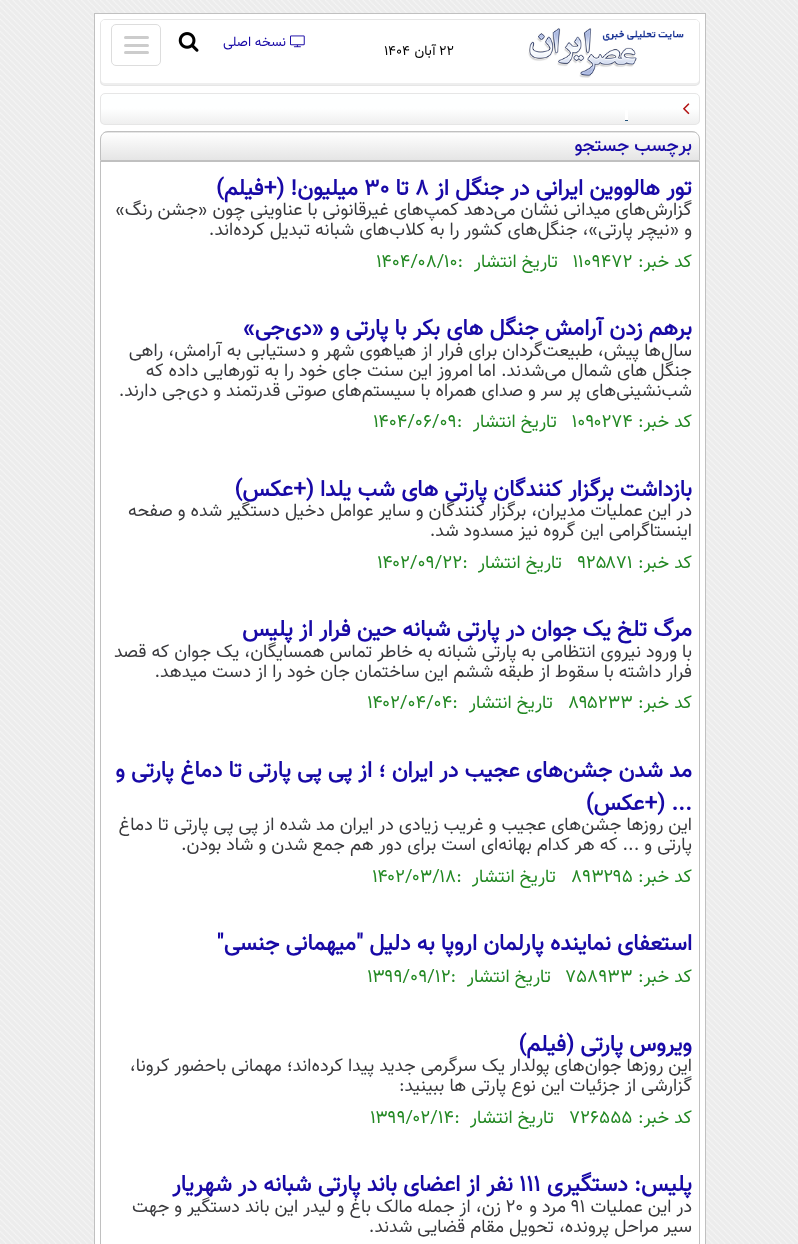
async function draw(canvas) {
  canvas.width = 798
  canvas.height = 1244
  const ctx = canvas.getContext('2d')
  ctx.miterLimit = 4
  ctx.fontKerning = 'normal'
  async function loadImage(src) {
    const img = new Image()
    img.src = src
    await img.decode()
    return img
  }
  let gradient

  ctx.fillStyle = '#fff'
  ctx.fillRect(0, 0, 798, 1244)
  ctx.drawImage(await loadImage('image0.png'), 0, 0, 798, 1244)
  ctx.fillRect(95, 14, 610, 1230)
  ctx.fillStyle = '#c0c0c0'
  ctx.fillRect(94, 13, 612, 1)
  ctx.fillRect(705, 13, 1, 1231)
  ctx.fillRect(94, 13, 1, 1231)
  ctx.drawImage(await loadImage('image1.png'), 100, 79, 600, 6)
  ctx.beginPath()
  ctx.roundRect(100.5, 19.5, 599, 66, 4.5)
  ctx.strokeStyle = '#e6e6e6'
  ctx.stroke()
  ctx.fillStyle = '#fff'
  ctx.beginPath()
  ctx.roundRect(101, 20, 598, 63, 4)
  ctx.fill()
  ctx.drawImage(await loadImage('image2.png'), 528, 28, 156, 50)
  ctx.font = '13.75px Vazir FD'
  ctx.fillStyle = '#000'
  ctx.fillText('۲۲', 439, 55)
  ctx.direction = 'rtl'
  ctx.fillText('آبان', 436, 55)
  ctx.direction = 'ltr'
  ctx.fillText('۱۴۰۴', 384, 55)
  ctx.drawImage(await loadImage('image3.png'), 290, 35, 15, 13)
  ctx.direction = 'rtl'
  ctx.fillStyle = '#1809a6'
  ctx.fillText('نسخه اصلی', 286, 46)
  ctx.beginPath()
  ctx.roundRect(111.5, 24.5, 49, 41, 4.5)
  ctx.strokeStyle = '#ddd'
  ctx.stroke()
  ctx.fillStyle = '#ccc'
  ctx.beginPath()
  ctx.roundRect(124, 36, 25, 3, 1.5)
  ctx.fill()
  ctx.beginPath()
  ctx.roundRect(124, 44, 25, 3, 1.5)
  ctx.fill()
  ctx.beginPath()
  ctx.roundRect(124, 51, 25, 3, 1.5)
  ctx.fill()
  ctx.drawImage(await loadImage('image4.png'), 178, 32, 21, 20)
  ctx.save()
  ctx.beginPath()
  ctx.roundRect(100, 93, 600, 32, 5)
  ctx.clip()
  gradient = ctx.createLinearGradient(400, 94, 400, 124)
  gradient.addColorStop(0, '#feffff')
  gradient.addColorStop(0.48, '#feffff')
  gradient.addColorStop(1, '#efefef')
  ctx.fillStyle = gradient
  ctx.fillRect(100, 94, 600, 30)
  ctx.restore()
  ctx.beginPath()
  ctx.roundRect(100.5, 93.5, 599, 31, 4.5)
  ctx.strokeStyle = '#e6e6e6'
  ctx.stroke()
  ctx.drawImage(await loadImage('image5.png'), 683, 103, 7, 12)
  ctx.fillStyle = '#fff'
  ctx.fillRect(625, 110, 3, 11)
  ctx.fillStyle = '#1f527b'
  ctx.fillRect(625, 120, 3, 1)
  ctx.save()
  ctx.beginPath()
  ctx.roundRect(100, 131, 600, 30, [8, 8, 0, 0])
  ctx.clip()
  gradient = ctx.createLinearGradient(400, 105, 400, 133)
  gradient.addColorStop(0, '#fff')
  gradient.addColorStop(1, '#e5e5e5')
  ctx.fillStyle = gradient
  ctx.fillRect(100, 131, 600, 2)
  gradient = ctx.createLinearGradient(400, 132, 400, 160)
  gradient.addColorStop(0, '#fff')
  gradient.addColorStop(1, '#e5e5e5')
  ctx.fillStyle = gradient
  ctx.fillRect(100, 133, 600, 27)
  ctx.restore()
  ctx.beginPath()
  ctx.roundRect(100.5, 131.5, 599, 29, [7.5, 7.5, 0, 0])
  ctx.strokeStyle = '#c0c0c0'
  ctx.stroke()
  ctx.font = '500 18.75px Vazir FD'
  ctx.fillStyle = '#1809a6'
  ctx.fillText('برچسب جستجو', 692, 151)
  ctx.strokeRect(100.5, 161.5, 599, 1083)
  ctx.font = 'bold 22.5px Vazir FD'
  ctx.fillText('تور هالووین ایرانی در جنگل از', 692, 195)
  ctx.direction = 'ltr'
  ctx.fillText('8', 415, 195)
  ctx.direction = 'rtl'
  ctx.fillText('تا', 409, 195)
  ctx.direction = 'ltr'
  ctx.fillText('30', 364, 195)
  ctx.direction = 'rtl'
  ctx.fillText('میلیون! (+فیلم)', 358, 195)
  ctx.font = '18.3px Vazir FD'
  ctx.fillStyle = '#3a3a3d'
  ctx.fillText('گزارش‌های میدانی نشان می‌دهد کمپ‌های غیرقانونی با عناوینی چون «جشن رنگ»', 692, 215)
  ctx.fillText('و «نیچر پارتی»، جنگل‌های کشور را به کلاب‌های شبانه تبدیل کرده‌اند.', 692, 235)
  ctx.fillStyle = '#282'
  ctx.fillText('کد خبر:', 692, 267)
  ctx.direction = 'ltr'
  ctx.fillText('۱۱۰۹۴۷۲', 573, 267)
  ctx.direction = 'rtl'
  ctx.fillText('تاریخ انتشار', 558, 267)
  ctx.direction = 'ltr'
  ctx.fillText('۱۴۰۴/۰۸/۱۰:', 376, 267)
  ctx.direction = 'rtl'
  ctx.font = 'bold 22.5px Vazir FD'
  ctx.fillStyle = '#1809a6'
  ctx.fillText('برهم زدن آرامش جنگل های بکر با پارتی و «دی‌جی»', 692, 335)
  ctx.font = '18.3px Vazir FD'
  ctx.fillStyle = '#3a3a3d'
  ctx.fillText('سال‌ها پیش، طبیعت‌گردان برای فرار از هیاهوی شهر و دستیابی به آرامش، راهی', 692, 356)
  ctx.fillText('جنگل های شمال می‌شدند. اما امروز این سنت جای خود را به تورهایی داده که', 692, 376)
  ctx.fillText('شب‌نشینی‌های پر سر و صدای همراه با سیستم‌های صوتی قدرتمند و دی‌جی دارند.', 692, 396)
  ctx.fillStyle = '#282'
  ctx.fillText('کد خبر:', 692, 427)
  ctx.direction = 'ltr'
  ctx.fillText('۱۰۹۰۲۷۴', 572, 427)
  ctx.direction = 'rtl'
  ctx.fillText('تاریخ انتشار', 557, 427)
  ctx.direction = 'ltr'
  ctx.fillText('۱۴۰۴/۰۶/۰۹:', 373, 427)
  ctx.direction = 'rtl'
  ctx.font = 'bold 22.5px Vazir FD'
  ctx.fillStyle = '#1809a6'
  ctx.fillText('بازداشت برگزار کنندگان پارتی‌ های شب یلدا (+عکس)', 692, 496)
  ctx.font = '18.3px Vazir FD'
  ctx.fillStyle = '#3a3a3d'
  ctx.fillText('در این عملیات‌ مدیران، برگزار کنندگان و سایر عوامل دخیل دستگیر شده و صفحه', 692, 516)
  ctx.fillText('اینستاگرامی این گروه نیز مسدود شد.', 692, 536)
  ctx.fillStyle = '#282'
  ctx.fillText('کد خبر:', 692, 568)
  ctx.direction = 'ltr'
  ctx.fillText('۹۲۵۸۷۱', 577, 568)
  ctx.direction = 'rtl'
  ctx.fillText('تاریخ انتشار', 562, 568)
  ctx.direction = 'ltr'
  ctx.fillText('۱۴۰۲/۰۹/۲۲:', 377, 568)
  ctx.direction = 'rtl'
  ctx.font = 'bold 22.5px Vazir FD'
  ctx.fillStyle = '#1809a6'
  ctx.fillText('مرگ تلخ یک جوان در پارتی شبانه حین فرار از پلیس', 692, 636)
  ctx.font = '18.3px Vazir FD'
  ctx.fillStyle = '#3a3a3d'
  ctx.fillText('با ورود نیروی انتظامی به پارتی شبانه به خاطر تماس همسایگان، یک جوان که قصد', 692, 657)
  ctx.fillText('فرار داشته با سقوط از طبقه ششم این ساختمان جان خود را از دست میدهد.', 692, 677)
  ctx.fillStyle = '#282'
  ctx.fillText('کد خبر:', 692, 708)
  ctx.direction = 'ltr'
  ctx.fillText('۸۹۵۲۳۳', 568, 708)
  ctx.direction = 'rtl'
  ctx.fillText('تاریخ انتشار', 553, 708)
  ctx.direction = 'ltr'
  ctx.fillText('۱۴۰۲/۰۴/۰۴:', 367, 708)
  ctx.direction = 'rtl'
  ctx.font = 'bold 22.5px Vazir FD'
  ctx.fillStyle = '#1809a6'
  ctx.fillText('مد شدن جشن‌های عجیب در ایران ؛ از پی پی پارتی تا دماغ پارتی و', 692, 777)
  ctx.fillText('... (+عکس)', 692, 810)
  ctx.font = '18.3px Vazir FD'
  ctx.fillStyle = '#3a3a3d'
  ctx.fillText('این روزها جشن‌های عجیب و غریب زیادی در ایران مد شده از پی پی پارتی تا دماغ', 692, 830)
  ctx.fillText('پارتی و ... که هر کدام بهانه‌ای است برای دور هم جمع شدن و شاد بودن.', 692, 850)
  ctx.fillStyle = '#282'
  ctx.fillText('کد خبر:', 692, 882)
  ctx.direction = 'ltr'
  ctx.fillText('۸۹۳۲۹۵', 571, 882)
  ctx.direction = 'rtl'
  ctx.fillText('تاریخ انتشار', 556, 882)
  ctx.direction = 'ltr'
  ctx.fillText('۱۴۰۲/۰۳/۱۸:', 372, 882)
  ctx.direction = 'rtl'
  ctx.font = 'bold 22.5px Vazir FD'
  ctx.fillStyle = '#1809a6'
  ctx.fillText('استعفای نماینده پارلمان اروپا به دلیل "میهمانی جنسی"', 692, 950)
  ctx.font = '18.3px Vazir FD'
  ctx.fillStyle = '#282'
  ctx.fillText('کد خبر:', 692, 982)
  ctx.direction = 'ltr'
  ctx.fillText('۷۵۸۹۳۳', 566, 982)
  ctx.direction = 'rtl'
  ctx.fillText('تاریخ انتشار', 551, 982)
  ctx.direction = 'ltr'
  ctx.fillText('۱۳۹۹/۰۹/۱۲:', 367, 982)
  ctx.direction = 'rtl'
  ctx.font = 'bold 22.5px Vazir FD'
  ctx.fillStyle = '#1809a6'
  ctx.fillText('ویروس پارتی (فیلم)', 692, 1051)
  ctx.font = '18.3px Vazir FD'
  ctx.fillStyle = '#3a3a3d'
  ctx.fillText('این روز‌ها جوان‌های پولدار یک سرگرمی جدید پیدا کرده‌اند؛ مهمانی باحضور کرونا،', 692, 1071)
  ctx.fillText('گزارشی از جزئیات این نوع پارتی ها ببینید:', 692, 1091)
  ctx.fillStyle = '#282'
  ctx.fillText('کد خبر:', 692, 1123)
  ctx.direction = 'ltr'
  ctx.fillText('۷۲۶۵۵۵', 569, 1123)
  ctx.direction = 'rtl'
  ctx.fillText('تاریخ انتشار', 554, 1123)
  ctx.direction = 'ltr'
  ctx.fillText('۱۳۹۹/۰۲/۱۴:', 370, 1123)
  ctx.direction = 'rtl'
  ctx.font = 'bold 22.5px Vazir FD'
  ctx.fillStyle = '#1809a6'
  ctx.fillText('پلیس: دستگیری', 692, 1191)
  ctx.direction = 'ltr'
  ctx.fillText('111', 519, 1191)
  ctx.direction = 'rtl'
  ctx.fillText('نفر از اعضای باند پارتی شبانه در شهریار', 513, 1191)
  ctx.font = '18.3px Vazir FD'
  ctx.fillStyle = '#3a3a3d'
  ctx.fillText('در این عملیات', 692, 1212)
  ctx.direction = 'ltr'
  ctx.fillText('۹۱', 571, 1212)
  ctx.direction = 'rtl'
  ctx.fillText('مرد و', 566, 1212)
  ctx.direction = 'ltr'
  ctx.fillText('۲۰', 506, 1212)
  ctx.direction = 'rtl'
  ctx.fillText('زن، از جمله مالک باغ و لیدر این باند دستگیر و جهت', 501, 1212)
  ctx.fillText('سیر مراحل پرونده، تحویل مقام قضایی شدند.', 692, 1232)
}

draw(document.querySelector('canvas'))
